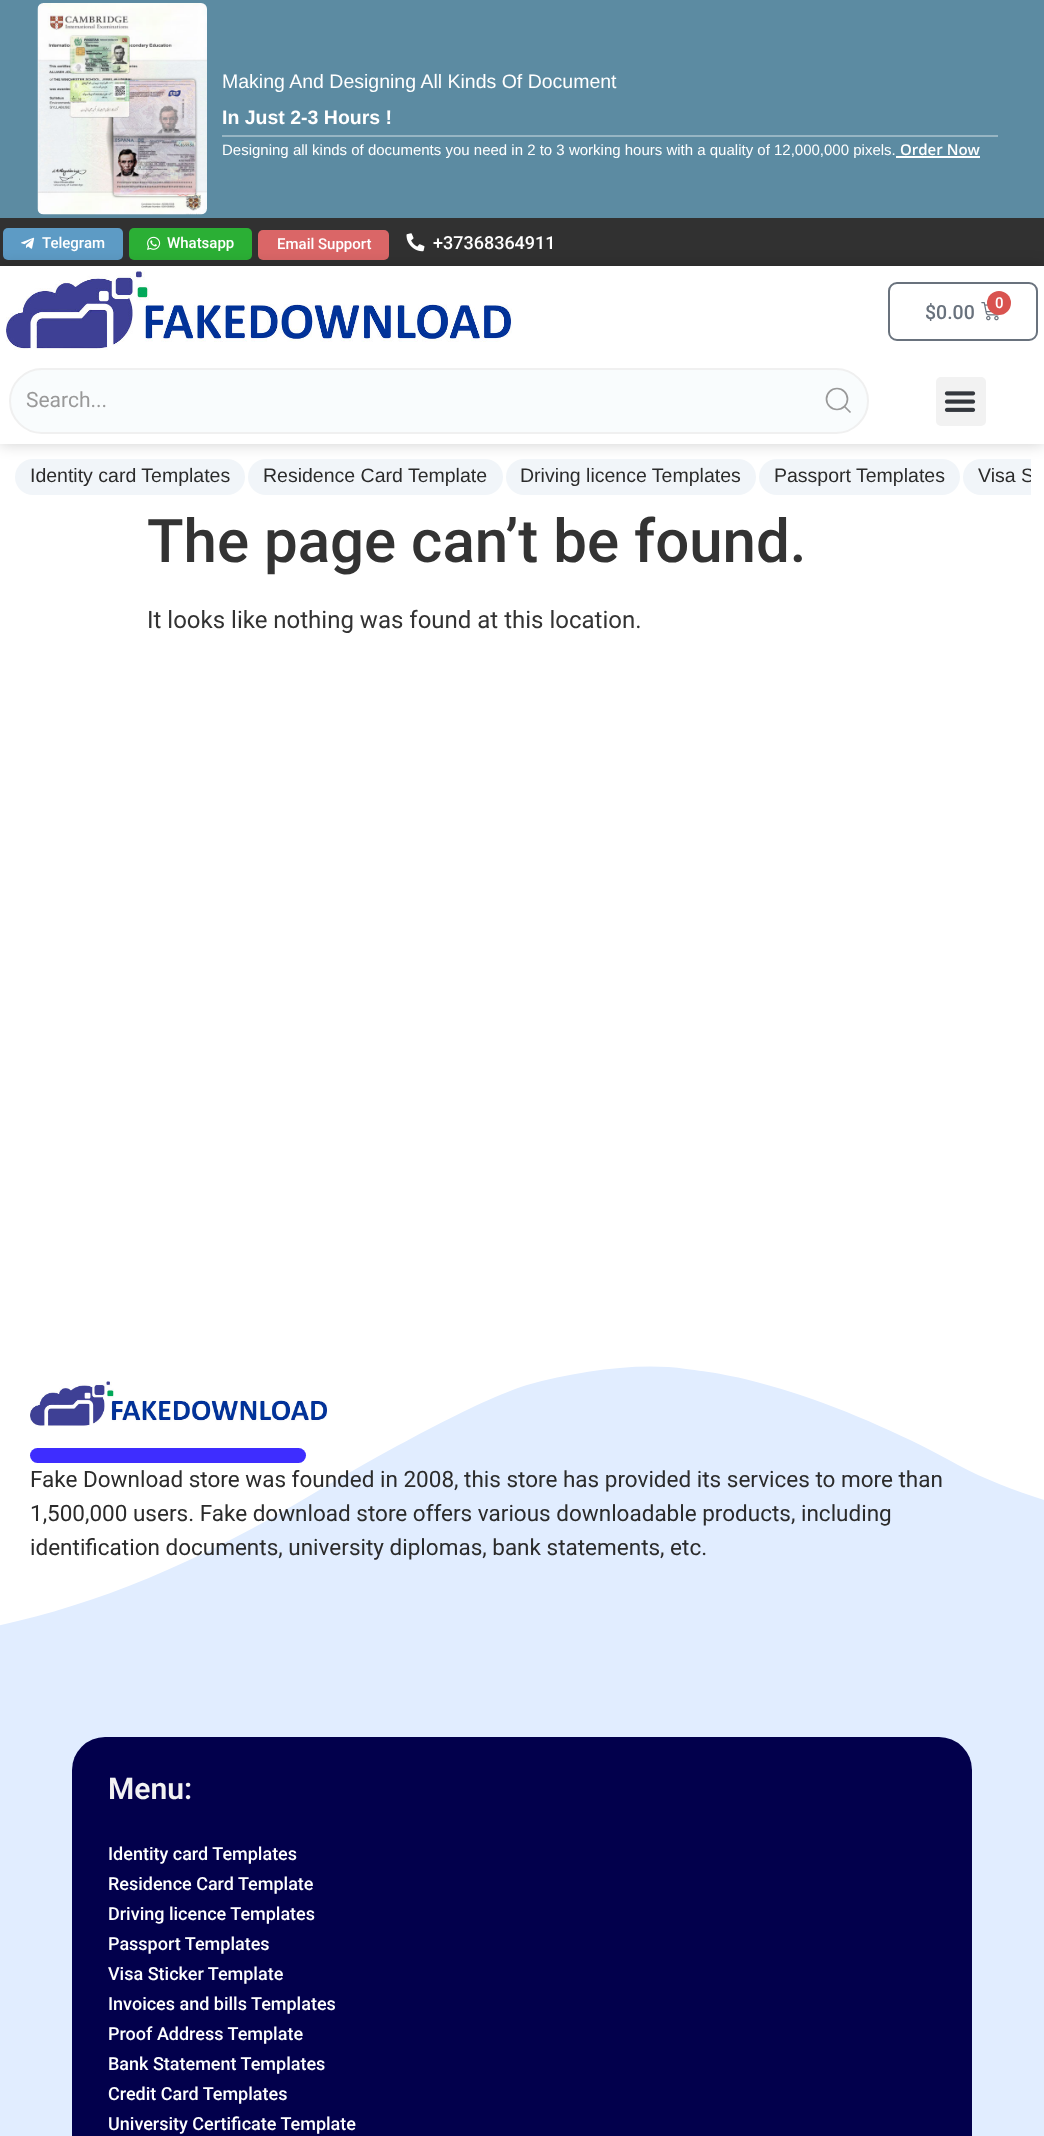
async function draw(canvas) {
  canvas.width = 1044
  canvas.height = 2136
  const ctx = canvas.getContext('2d')
  ctx.miterLimit = 4
  ctx.fontKerning = 'normal'
  async function loadImage(src) {
    const img = new Image()
    img.src = src
    await img.decode()
    return img
  }

  ctx.fillStyle = '#fff'
  ctx.fillRect(0, 0, 1044, 2136)
  ctx.fillStyle = '#5c8ba2'
  ctx.fillRect(0, 0, 1044, 218)
  ctx.drawImage(await loadImage('image0.png'), 37, 3, 170, 212)
  ctx.font = '19.5px Liberation Sans'
  ctx.fillStyle = '#fff'
  ctx.fillText('Making And Designing All Kinds Of Document', 222, 88)
  ctx.font = 'bold 19.5px Liberation Sans'
  ctx.fillText('In Just 2-3 Hours !', 222, 124)
  ctx.fillStyle = '#97b5c3'
  ctx.fillRect(222, 135, 776, 2)
  ctx.font = '15px Liberation Sans'
  ctx.fillStyle = '#fff'
  ctx.fillText('Designing all kinds of documents you need in 2 to 3 working hours with a quality of 12,000,000 pixels.', 222, 155)
  ctx.font = '600 15px Open Sans'
  ctx.fillText('Order Now', 900, 155)
  ctx.fillRect(896, 156, 84, 2)
  ctx.fillStyle = '#313131'
  ctx.fillRect(0, 218, 1044, 48)
  ctx.fillStyle = '#5d9bc5'
  ctx.beginPath()
  ctx.roundRect(3, 228, 120, 32, 5)
  ctx.fill()
  ctx.drawImage(await loadImage('image1.png'), 21, 237, 14, 12)
  ctx.font = '500 15px Roboto'
  ctx.fillStyle = '#fff'
  ctx.fillText('Telegram', 42, 248)
  ctx.fillStyle = '#2baf35'
  ctx.beginPath()
  ctx.roundRect(129, 228, 123, 32, 5)
  ctx.fill()
  ctx.drawImage(await loadImage('image2.png'), 147, 236, 14, 14)
  ctx.fillStyle = '#fff'
  ctx.fillText('Whatsapp', 167, 248)
  ctx.fillStyle = '#da6667'
  ctx.beginPath()
  ctx.roundRect(258, 230, 131, 30, 5)
  ctx.fill()
  ctx.fillStyle = '#fff'
  ctx.fillText('Email Support', 277, 249)
  ctx.drawImage(await loadImage('image3.png'), 406, 233, 19, 19)
  ctx.font = '500 18px Roboto'
  ctx.fillText('+37368364911', 433, 249)
  ctx.save()
  ctx.beginPath()
  ctx.moveTo(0, 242)
  ctx.lineTo(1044, 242)
  ctx.lineTo(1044, 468)
  ctx.lineTo(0, 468)
  ctx.closePath()
  ctx.moveTo(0, 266)
  ctx.lineTo(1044, 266)
  ctx.lineTo(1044, 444)
  ctx.lineTo(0, 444)
  ctx.closePath()
  ctx.clip('evenodd')
  ctx.fillStyle = '#00000030'
  ctx.filter = 'blur(7.5px)'
  ctx.beginPath()
  ctx.rect(0, 266, 1044, 178)
  ctx.fill()
  ctx.filter = 'none'
  ctx.restore()
  ctx.drawImage(await loadImage('image4.png'), 6, 271, 506, 79)
  ctx.beginPath()
  ctx.roundRect(889, 283, 148, 57, 8)
  ctx.strokeStyle = '#69727d'
  ctx.lineWidth = 2
  ctx.stroke()
  ctx.font = '500 19.5px Roboto'
  ctx.fillStyle = '#69727d'
  ctx.fillText('$0.00', 925, 319)
  ctx.drawImage(await loadImage('image5.png'), 981, 302, 18, 19)
  ctx.fillStyle = '#d9534f'
  ctx.beginPath()
  ctx.arc(999, 303, 12, 0, 2 * Math.PI)
  ctx.fill()
  ctx.font = '500 15px Roboto'
  ctx.fillStyle = '#fff'
  ctx.fillText('0', 995, 308)
  ctx.fillStyle = '#f9fcfd'
  ctx.beginPath()
  ctx.roundRect(10, 369, 858, 64, 32)
  ctx.fill()
  ctx.strokeStyle = '#f0f0f0'
  ctx.stroke()
  ctx.font = '21px Roboto'
  ctx.fillStyle = '#999'
  ctx.fillText('Search...', 26, 407)
  ctx.beginPath()
  ctx.arc(837, 399, 10.5, 0, 2 * Math.PI)
  ctx.strokeStyle = '#999'
  ctx.lineWidth = 1.7
  ctx.stroke()
  ctx.beginPath()
  ctx.moveTo(844.5, 406.5)
  ctx.lineTo(850.5, 412.5)
  ctx.closePath()
  ctx.stroke()
  ctx.fillStyle = '#f2f2f2'
  ctx.beginPath()
  ctx.roundRect(936, 377, 50, 49, 5)
  ctx.fill()
  ctx.drawImage(await loadImage('image6.png'), 944, 391, 32, 21)
  ctx.fillStyle = '#f1f5f9'
  ctx.beginPath()
  ctx.roundRect(15, 459, 230, 36, 18)
  ctx.fill()
  ctx.font = '19.5px Liberation Sans'
  ctx.fillStyle = '#2b2b2b'
  ctx.fillText('Identity card Templates', 30, 482)
  ctx.fillStyle = '#f1f5f9'
  ctx.beginPath()
  ctx.roundRect(248, 459, 255, 36, 18)
  ctx.fill()
  ctx.fillStyle = '#2b2b2b'
  ctx.fillText('Residence Card Template', 263, 482)
  ctx.fillStyle = '#f1f5f9'
  ctx.beginPath()
  ctx.roundRect(506, 459, 250, 36, 18)
  ctx.fill()
  ctx.fillStyle = '#2b2b2b'
  ctx.fillText('Driving licence Templates', 520, 482)
  ctx.fillStyle = '#f1f5f9'
  ctx.beginPath()
  ctx.roundRect(759, 459, 201, 36, 18)
  ctx.fill()
  ctx.fillStyle = '#2b2b2b'
  ctx.fillText('Passport Templates', 774, 482)
  ctx.fillStyle = '#f1f5f9'
  ctx.beginPath()
  ctx.roundRect(963, 459, 68, 36, [18, 0, 0, 18])
  ctx.fill()
  ctx.save()
  ctx.beginPath()
  ctx.rect(0, 444, 1031, 66)
  ctx.clip()
  ctx.fillStyle = '#2b2b2b'
  ctx.fillText('Visa S', 978, 482)
  ctx.restore()
  ctx.font = '500 60px Roboto'
  ctx.fillStyle = '#333'
  ctx.fillText('The page can’t be found.', 147, 562)
  ctx.font = '24px Roboto'
  ctx.fillText('It looks like nothing was found at this location.', 147, 628)
  ctx.fillStyle = '#e1edff'
  ctx.fillRect(0, 1366, 1044, 770)
  ctx.fillStyle = '#fff'
  ctx.beginPath()
  ctx.moveTo(686, 1369)
  ctx.bezierCurveTo(639, 1362, 578, 1371, 527, 1385)
  ctx.bezierCurveTo(478, 1400, 379, 1455, 316, 1492)
  ctx.bezierCurveTo(157, 1588, 36, 1625, -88, 1640)
  ctx.bezierCurveTo(-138, 1646, -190, 1651, -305, 1633)
  ctx.bezierCurveTo(-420, 1615, -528, 1556, -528, 1556)
  ctx.lineTo(-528, 1350)
  ctx.lineTo(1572, 1350)
  ctx.lineTo(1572, 1440)
  ctx.bezierCurveTo(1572, 1440, 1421, 1538, 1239, 1531)
  ctx.bezierCurveTo(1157, 1529, 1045, 1511, 958, 1465)
  ctx.bezierCurveTo(914, 1440, 848, 1410, 791, 1392)
  ctx.bezierCurveTo(734, 1374, 708, 1372, 686, 1369)
  ctx.closePath()
  ctx.fill()
  ctx.drawImage(await loadImage('image7.png'), 30, 1381, 298, 46)
  ctx.fillStyle = '#3e2dff'
  ctx.beginPath()
  ctx.roundRect(30, 1448, 276, 15, 7.5)
  ctx.fill()
  ctx.font = '22.5px Roboto'
  ctx.fillStyle = '#2b2b2b'
  ctx.fillText('Fake Download store was founded in 2008, this store has provided its services to more than', 30, 1487)
  ctx.fillText('1,500,000 users. Fake download store offers various downloadable products, including', 30, 1521)
  ctx.fillText('identification documents, university diplomas, bank statements, etc.', 30, 1555)
  ctx.fillStyle = '#02004c'
  ctx.beginPath()
  ctx.roundRect(72, 1737, 900, 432, 33)
  ctx.fill()
  ctx.font = '600 30px Roboto'
  ctx.fillStyle = '#f2f2f2'
  ctx.fillText('Menu:', 108, 1799)
  ctx.font = '500 18px Roboto'
  ctx.fillStyle = '#fff'
  ctx.fillText('Identity card Templates', 108, 1860)
  ctx.fillText('Residence Card Template', 108, 1890)
  ctx.fillText('Driving licence Templates', 108, 1920)
  ctx.fillText('Passport Templates', 108, 1950)
  ctx.fillText('Visa Sticker Template', 108, 1980)
  ctx.fillText('Invoices and bills Templates', 108, 2010)
  ctx.fillText('Proof Address Template', 108, 2040)
  ctx.fillText('Bank Statement Templates', 108, 2070)
  ctx.fillText('Credit Card Templates', 108, 2100)
  ctx.fillText('University Certificate Template', 108, 2130)
}

draw(document.querySelector('canvas'))
